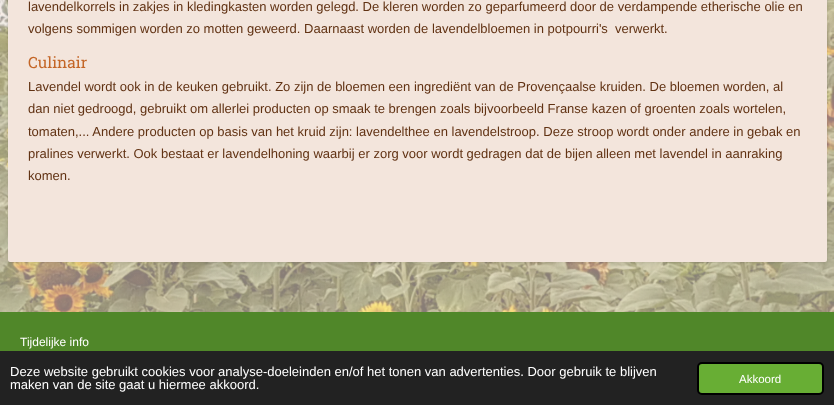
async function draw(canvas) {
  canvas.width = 834
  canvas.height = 405
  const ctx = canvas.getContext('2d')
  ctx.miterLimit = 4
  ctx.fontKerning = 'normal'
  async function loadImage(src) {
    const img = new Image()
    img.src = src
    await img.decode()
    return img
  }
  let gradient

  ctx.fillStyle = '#fff'
  ctx.fillRect(0, 0, 834, 405)
  gradient = ctx.createLinearGradient(417, 95, 417, -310)
  gradient.addColorStop(0, '#f6e0d2')
  gradient.addColorStop(1, '#f8e8de')
  ctx.fillStyle = gradient
  ctx.fillRect(0, 0, 834, 95)
  gradient = ctx.createLinearGradient(417, 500, 417, 95)
  gradient.addColorStop(0, '#f6e0d2')
  gradient.addColorStop(1, '#f8e8de')
  ctx.fillStyle = gradient
  ctx.fillRect(0, 95, 834, 217)
  ctx.drawImage(await loadImage('image0.png'), 0, 0, 834, 312)
  ctx.fillStyle = '#0000001a'
  ctx.filter = 'blur(1.5px)'
  ctx.beginPath()
  ctx.rect(8, -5, 819, 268)
  ctx.fill()
  ctx.filter = 'none'
  ctx.fillStyle = '#f3e5dc'
  ctx.beginPath()
  ctx.roundRect(8, -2, 819, 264, 2)
  ctx.fill()
  ctx.font = '13px Liberation Sans'
  ctx.fillStyle = '#613213'
  ctx.fillText('lavendelkorrels in zakjes in kledingkasten worden gelegd. De kleren worden zo geparfumeerd door de verdampende etherische olie en', 28, 11)
  ctx.fillText('volgens sommigen worden zo motten geweerd. Daarnaast worden de lavendelbloemen in potpourri\'s', 28, 33)
  ctx.fillText('verwerkt.', 615, 33)
  ctx.font = '15.5px Roboto Slab'
  ctx.fillStyle = '#c46627'
  ctx.fillText('Culinair', 28, 68)
  ctx.font = '13px Liberation Sans'
  ctx.fillStyle = '#613213'
  ctx.fillText('Lavendel wordt ook in de keuken gebruikt. Zo zijn de bloemen een ingrediënt van de Provençaalse kruiden. De bloemen worden, al', 28, 91)
  ctx.fillText('dan niet gedroogd, gebruikt om allerlei producten op smaak te brengen zoals bijvoorbeeld Franse kazen of groenten zoals wortelen,', 28, 113)
  ctx.fillText('tomaten,... Andere producten op basis van het kruid zijn: lavendelthee en lavendelstroop. Deze stroop wordt onder andere in gebak en', 28, 136)
  ctx.fillText('pralines verwerkt. Ook bestaat er lavendelhoning waarbij er zorg voor wordt gedragen dat de bijen alleen met lavendel in aanraking', 28, 158)
  ctx.fillText('komen.', 28, 180)
  ctx.fillStyle = '#508729'
  ctx.fillRect(0, 312, 834, 39)
  ctx.font = '12px Liberation Sans'
  ctx.fillStyle = '#fff'
  ctx.fillText('Tijdelijke info', 20, 346)
  ctx.fillStyle = '#222'
  ctx.fillRect(0, 351, 834, 54)
  ctx.font = '13px Liberation Sans'
  ctx.fillStyle = '#fff'
  ctx.fillText('Deze website gebruikt cookies voor analyse-doeleinden en/of het tonen van advertenties. Door gebruik te blijven', 10, 376)
  ctx.fillText('maken van de site gaat u hiermee akkoord.', 10, 389)
  ctx.fillStyle = '#68ae34'
  ctx.beginPath()
  ctx.roundRect(698, 363, 125, 31, 4)
  ctx.fill()
  ctx.strokeStyle = '#000'
  ctx.lineWidth = 2
  ctx.stroke()
  ctx.font = '11.5px Liberation Sans'
  ctx.fillStyle = '#fff'
  ctx.fillText('Akkoord', 739, 383)
}

draw(document.querySelector('canvas'))
